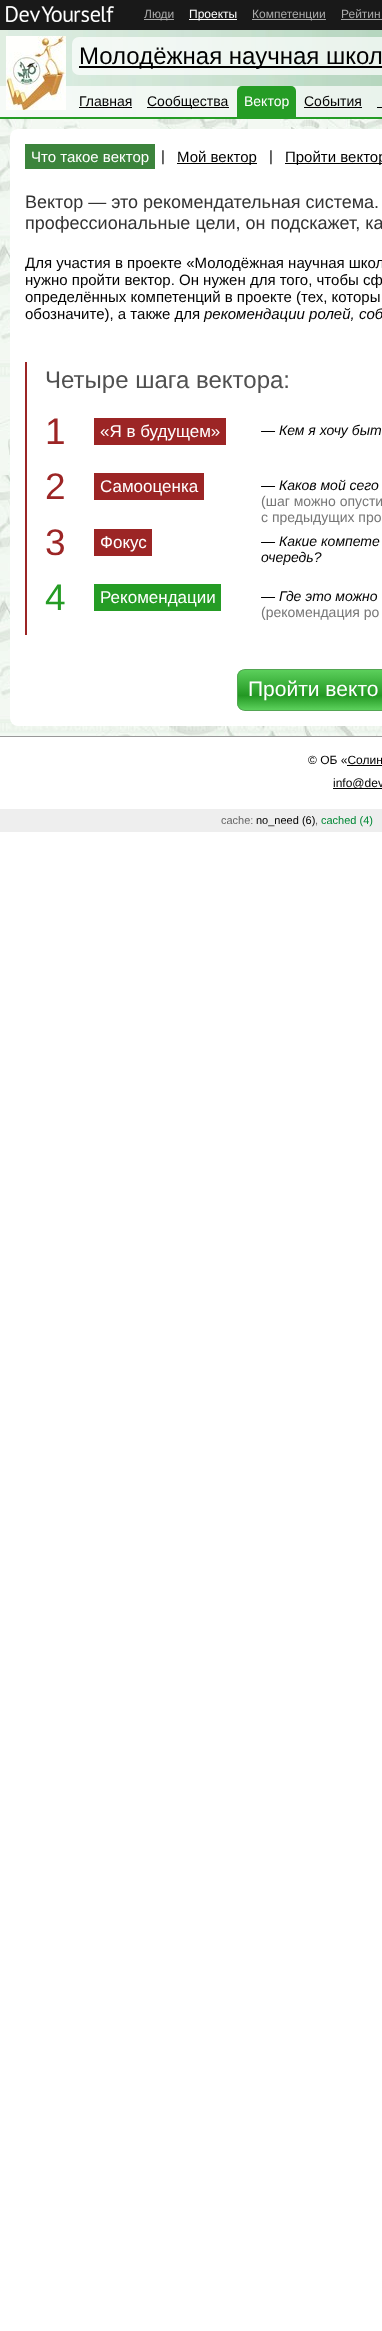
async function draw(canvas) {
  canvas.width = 382
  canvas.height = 2331
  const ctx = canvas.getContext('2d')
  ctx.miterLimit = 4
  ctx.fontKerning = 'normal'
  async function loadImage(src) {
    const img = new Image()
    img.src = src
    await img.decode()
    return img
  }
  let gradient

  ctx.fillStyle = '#fff'
  ctx.fillRect(0, 0, 382, 2331)
  ctx.fillStyle = '#191919'
  ctx.fillRect(0, 0, 382, 30)
  ctx.drawImage(await loadImage('image0.png'), 6, 6, 108, 16)
  ctx.fillStyle = '#aaa'
  ctx.fillRect(144, 19, 30, 1)
  ctx.font = '12px Liberation Sans'
  ctx.fillText('Люди', 144, 18)
  ctx.fillStyle = '#fff'
  ctx.fillRect(189, 19, 48, 1)
  ctx.fillText('Проекты', 189, 18)
  ctx.fillStyle = '#aaa'
  ctx.fillRect(252, 19, 74, 1)
  ctx.fillText('Компетенции', 252, 18)
  ctx.fillText('Рейтин', 341, 18)
  ctx.fillRect(341, 19, 41, 1)
  ctx.drawImage(await loadImage('image1.png'), 0, 30, 382, 87)
  ctx.fillStyle = '#259c25'
  ctx.fillRect(0, 117, 382, 2)
  ctx.fillStyle = '#ffffffb3'
  ctx.fillRect(0, 86, 72, 31)
  ctx.drawImage(await loadImage('image2.png'), 6, 36, 60, 74)
  ctx.beginPath()
  ctx.roundRect(72, 37, 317, 38, 7)
  ctx.fill()
  ctx.fillStyle = '#000'
  ctx.fillRect(79, 66, 303, 2)
  ctx.font = '24px Liberation Sans'
  ctx.fillText('Молодёжная научная школ', 79, 64)
  ctx.fillStyle = '#ffffffb3'
  ctx.fillRect(72, 86, 310, 31)
  ctx.font = '14px Liberation Sans'
  ctx.fillStyle = '#000'
  ctx.fillText('Главная', 79, 106)
  ctx.fillRect(79, 107, 53, 1)
  ctx.fillRect(147, 107, 82, 1)
  ctx.fillText('Сообщества', 147, 106)
  ctx.fillStyle = '#259c25'
  ctx.beginPath()
  ctx.roundRect(237, 86, 59, 31, [5, 5, 0, 0])
  ctx.fill()
  ctx.fillStyle = '#fff'
  ctx.fillText('Вектор', 244, 106)
  ctx.fillStyle = '#000'
  ctx.fillText('События', 304, 106)
  ctx.fillRect(304, 107, 58, 1)
  ctx.fillRect(377, 107, 5, 1)
  ctx.drawImage(await loadImage('image3.png'), 0, 119, 382, 617)
  ctx.fillStyle = '#fff'
  ctx.beginPath()
  ctx.roundRect(10, 129, 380, 597, 8)
  ctx.fill()
  ctx.fillStyle = '#3c843c'
  ctx.fillRect(25, 144, 130, 25)
  ctx.font = '15px Liberation Sans'
  ctx.fillStyle = '#fff'
  ctx.fillText('Что такое вектор', 31, 162)
  ctx.fillStyle = '#000'
  ctx.fillText('|', 161, 161)
  ctx.fillRect(177, 163, 80, 1)
  ctx.fillText('Мой вектор', 177, 162)
  ctx.fillText('|', 269, 161)
  ctx.fillRect(285, 163, 97, 1)
  ctx.fillText('Пройти вектор', 285, 162)
  ctx.font = '18px Liberation Sans'
  ctx.fillStyle = '#333'
  ctx.fillText('Вектор — это рекомендательная система.', 25, 208)
  ctx.fillText('профессиональные цели, он подскажет, ка', 25, 229)
  ctx.font = '15px Liberation Sans'
  ctx.fillStyle = '#000'
  ctx.fillText('Для участия в проекте «Молодёжная научная школ', 25, 268)
  ctx.fillText('нужно пройти вектор. Он нужен для того, чтобы сф', 25, 285)
  ctx.fillText('определённых компетенций в проекте (тех, которы', 25, 302)
  ctx.fillText('обозначите), а также для', 25, 319)
  ctx.font = 'italic 15px Liberation Sans'
  ctx.fillText('рекомендации ролей, соб', 204, 319)
  ctx.fillStyle = '#9c2525'
  ctx.fillRect(25, 362, 2, 273)
  ctx.font = '24px Liberation Sans'
  ctx.fillStyle = '#505050'
  ctx.fillText('Четыре шага вектора:', 45, 388)
  ctx.font = '37px Liberation Sans'
  ctx.fillStyle = '#9c2525'
  ctx.fillText('1', 45, 444)
  ctx.fillRect(94, 418, 132, 27)
  ctx.font = '17px Liberation Sans'
  ctx.fillStyle = '#fff'
  ctx.fillText('«Я в будущем»', 100, 437)
  ctx.font = 'italic 14px Liberation Sans'
  ctx.fillStyle = '#000'
  ctx.fillText('— Кем я хочу быт', 261, 435)
  ctx.font = '37px Liberation Sans'
  ctx.fillStyle = '#9c2525'
  ctx.fillText('2', 45, 499)
  ctx.fillRect(94, 473, 110, 27)
  ctx.font = '17px Liberation Sans'
  ctx.fillStyle = '#fff'
  ctx.fillText('Самооценка', 100, 492)
  ctx.font = 'italic 14px Liberation Sans'
  ctx.fillStyle = '#000'
  ctx.fillText('— Каков мой сего', 261, 490)
  ctx.font = '14px Liberation Sans'
  ctx.fillStyle = '#777'
  ctx.fillText('(шаг можно опусти', 261, 506)
  ctx.fillText('с предыдущих про', 261, 522)
  ctx.font = '37px Liberation Sans'
  ctx.fillStyle = '#9c2525'
  ctx.fillText('3', 45, 555)
  ctx.fillRect(94, 529, 58, 27)
  ctx.font = '17px Liberation Sans'
  ctx.fillStyle = '#fff'
  ctx.fillText('Фокус', 100, 548)
  ctx.font = 'italic 14px Liberation Sans'
  ctx.fillStyle = '#000'
  ctx.fillText('— Какие компете', 261, 546)
  ctx.fillText('очередь?', 261, 562)
  ctx.font = '37px Liberation Sans'
  ctx.fillStyle = '#259c25'
  ctx.fillText('4', 45, 610)
  ctx.fillRect(94, 584, 127, 27)
  ctx.font = '17px Liberation Sans'
  ctx.fillStyle = '#fff'
  ctx.fillText('Рекомендации', 100, 603)
  ctx.font = 'italic 14px Liberation Sans'
  ctx.fillStyle = '#000'
  ctx.fillText('— Где это можно', 261, 601)
  ctx.font = '14px Liberation Sans'
  ctx.fillStyle = '#777'
  ctx.fillText('(рекомендация ро', 261, 617)
  ctx.save()
  ctx.beginPath()
  ctx.roundRect(237, 669, 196, 42, 8)
  ctx.clip()
  gradient = ctx.createLinearGradient(335, 670, 335, 710)
  gradient.addColorStop(0, '#5bcf5b')
  gradient.addColorStop(0.64, '#239823')
  gradient.addColorStop(1, '#5cd15c')
  ctx.fillStyle = gradient
  ctx.fillRect(237, 670, 145, 40)
  ctx.restore()
  ctx.beginPath()
  ctx.roundRect(237.5, 669.5, 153, 41, 7.5)
  ctx.strokeStyle = '#53a553'
  ctx.stroke()
  ctx.font = '21px Liberation Sans'
  ctx.fillStyle = '#fff'
  ctx.fillText('Пройти векто', 248, 696)
  ctx.fillStyle = '#999'
  ctx.fillRect(0, 736, 382, 1)
  ctx.font = '12px Liberation Sans'
  ctx.fillStyle = '#000'
  ctx.fillText('© ОБ «Солин', 308, 764)
  ctx.fillRect(347, 765, 35, 1)
  ctx.fillRect(333, 788, 49, 1)
  ctx.fillText('info@dev', 333, 787)
  ctx.fillStyle = '#eee'
  ctx.fillRect(0, 809, 382, 23)
  ctx.font = '11px Liberation Sans'
  ctx.fillStyle = '#666'
  ctx.fillText('cache:', 221, 824)
  ctx.fillStyle = '#000'
  ctx.fillText('no_need (6)', 256, 824)
  ctx.fillStyle = '#666'
  ctx.fillText(',', 315, 824)
  ctx.fillStyle = '#008835'
  ctx.fillText('cached (4)', 321, 824)
}

draw(document.querySelector('canvas'))
